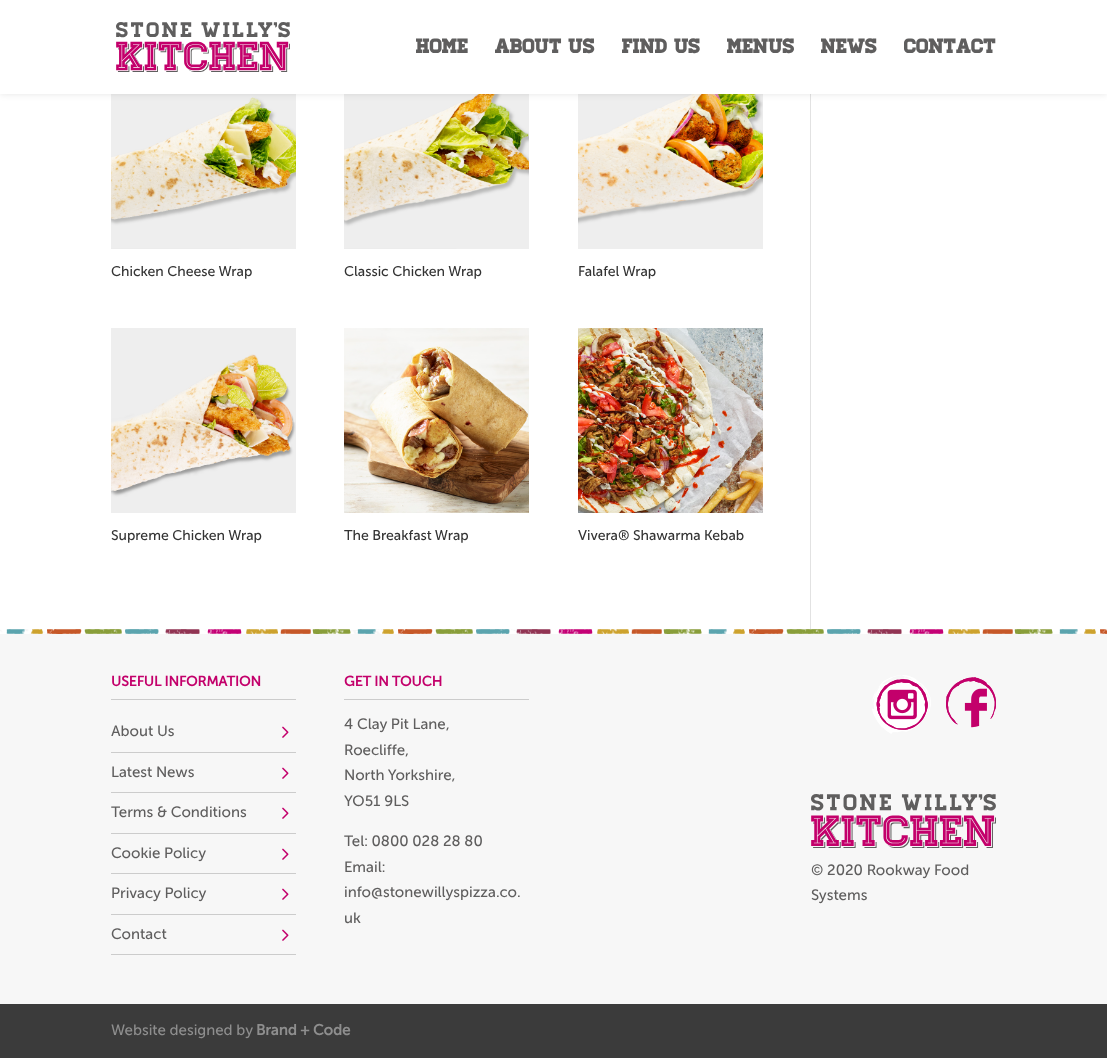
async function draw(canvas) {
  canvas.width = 1107
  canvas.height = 1058
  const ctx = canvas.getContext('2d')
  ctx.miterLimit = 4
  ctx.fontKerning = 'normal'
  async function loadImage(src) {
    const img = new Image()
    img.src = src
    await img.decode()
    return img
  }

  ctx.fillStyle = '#fff'
  ctx.fillRect(0, 0, 1107, 1058)
  ctx.drawImage(await loadImage('image0.png'), 0, 629, 1103, 5)
  ctx.drawImage(await loadImage('image2.png'), 111, 94, 185, 155)
  ctx.drawImage(await loadImage('image3.png'), 344, 94, 185, 155)
  ctx.drawImage(await loadImage('image4.png'), 578, 94, 185, 155)
  ctx.fillStyle = '#e2e2e2'
  ctx.fillRect(810, 94, 1, 535)
  ctx.fillStyle = '#0000001a'
  ctx.filter = 'blur(3.5px)'
  ctx.beginPath()
  ctx.rect(0, 0, 1107, 94)
  ctx.fill()
  ctx.filter = 'none'
  ctx.fillStyle = '#fff'
  ctx.fillRect(0, 0, 1107, 94)
  ctx.drawImage(await loadImage('image1.png'), 116, 22, 174, 50)
  ctx.font = 'bold 20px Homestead'
  ctx.fillStyle = '#5f5e5e'
  ctx.fillText('Home', 416, 53)
  ctx.fillText('About Us', 495, 53)
  ctx.fillText('Find Us', 622, 53)
  ctx.fillText('Menus', 727, 53)
  ctx.fillText('News', 821, 53)
  ctx.fillText('Contact', 904, 53)
  ctx.font = '14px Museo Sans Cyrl'
  ctx.fillStyle = '#333'
  ctx.fillText('Chicken Cheese Wrap', 111, 276)
  ctx.fillText('Classic Chicken Wrap', 344, 276)
  ctx.fillText('Falafel Wrap', 578, 276)
  ctx.drawImage(await loadImage('image5.png'), 111, 328, 185, 185)
  ctx.fillText('Supreme Chicken Wrap', 111, 540)
  ctx.drawImage(await loadImage('image6.png'), 344, 328, 185, 185)
  ctx.fillText('The Breakfast Wrap', 344, 540)
  ctx.drawImage(await loadImage('image7.png'), 578, 328, 185, 185)
  ctx.fillText('Vivera® Shawarma Kebab', 578, 540)
  ctx.drawImage(await loadImage('image8.png'), 6, 629, 1101, 5)
  ctx.fillStyle = '#f7f7f7'
  ctx.fillRect(0, 634, 1107, 370)
  ctx.fillStyle = '#ccc'
  ctx.fillRect(111, 699, 185, 1)
  ctx.font = 'bold 14px Museo Sans Cyrl'
  ctx.fillStyle = '#c3006b'
  ctx.fillText('USEFUL INFORMATION', 111, 686)
  ctx.fillStyle = '#ccc'
  ctx.fillRect(111, 752, 185, 1)
  ctx.font = '15px Museo Sans Cyrl'
  ctx.fillStyle = '#5f5e5e'
  ctx.fillText('About Us', 111, 736)
  ctx.drawImage(await loadImage('image9.png'), 282, 726, 7, 12)
  ctx.fillStyle = '#ccc'
  ctx.fillRect(111, 792, 185, 1)
  ctx.fillStyle = '#5f5e5e'
  ctx.fillText('Latest News', 111, 777)
  ctx.drawImage(await loadImage('image9.png'), 282, 767, 7, 12)
  ctx.fillStyle = '#ccc'
  ctx.fillRect(111, 833, 185, 1)
  ctx.fillStyle = '#5f5e5e'
  ctx.fillText('Terms & Conditions', 111, 817)
  ctx.drawImage(await loadImage('image9.png'), 282, 807, 7, 12)
  ctx.fillStyle = '#ccc'
  ctx.fillRect(111, 873, 185, 1)
  ctx.fillStyle = '#5f5e5e'
  ctx.fillText('Cookie Policy', 111, 858)
  ctx.drawImage(await loadImage('image9.png'), 282, 848, 7, 12)
  ctx.fillStyle = '#ccc'
  ctx.fillRect(111, 914, 185, 1)
  ctx.fillStyle = '#5f5e5e'
  ctx.fillText('Privacy Policy', 111, 898)
  ctx.drawImage(await loadImage('image9.png'), 282, 888, 7, 12)
  ctx.fillStyle = '#ccc'
  ctx.fillRect(111, 954, 185, 1)
  ctx.fillStyle = '#5f5e5e'
  ctx.fillText('Contact', 111, 939)
  ctx.drawImage(await loadImage('image9.png'), 282, 929, 7, 12)
  ctx.fillStyle = '#ccc'
  ctx.fillRect(344, 699, 185, 1)
  ctx.font = 'bold 14px Museo Sans Cyrl'
  ctx.fillStyle = '#c3006b'
  ctx.fillText('GET IN TOUCH', 344, 686)
  ctx.font = '15px Museo Sans Cyrl'
  ctx.fillStyle = '#5f5e5e'
  ctx.fillText('4 Clay Pit Lane,', 344, 729)
  ctx.fillText('Roecliffe,', 344, 755)
  ctx.fillText('North Yorkshire,', 344, 780)
  ctx.fillText('YO51 9LS', 344, 806)
  ctx.fillText('Tel: 0800 028 28 80', 344, 846)
  ctx.fillText('Email:', 344, 872)
  ctx.fillText('info@stonewillyspizza.co.', 344, 897)
  ctx.fillText('uk', 344, 923)
  ctx.drawImage(await loadImage('image10.png'), 872, 675, 59, 59)
  ctx.drawImage(await loadImage('image11.png'), 946, 677, 50, 51)
  ctx.drawImage(await loadImage('image12.png'), 811, 794, 185, 54)
  ctx.fillText('© 2020 Rookway Food', 811, 875)
  ctx.fillText('Systems', 811, 900)
  ctx.fillStyle = '#3b3b3b'
  ctx.fillRect(0, 1004, 1107, 54)
  ctx.fillStyle = '#8e8e8e'
  ctx.fillText('Website designed by', 111, 1035)
  ctx.font = 'bold 15px Museo Sans Cyrl'
  ctx.fillText('Brand + Code', 256, 1035)
}

draw(document.querySelector('canvas'))
